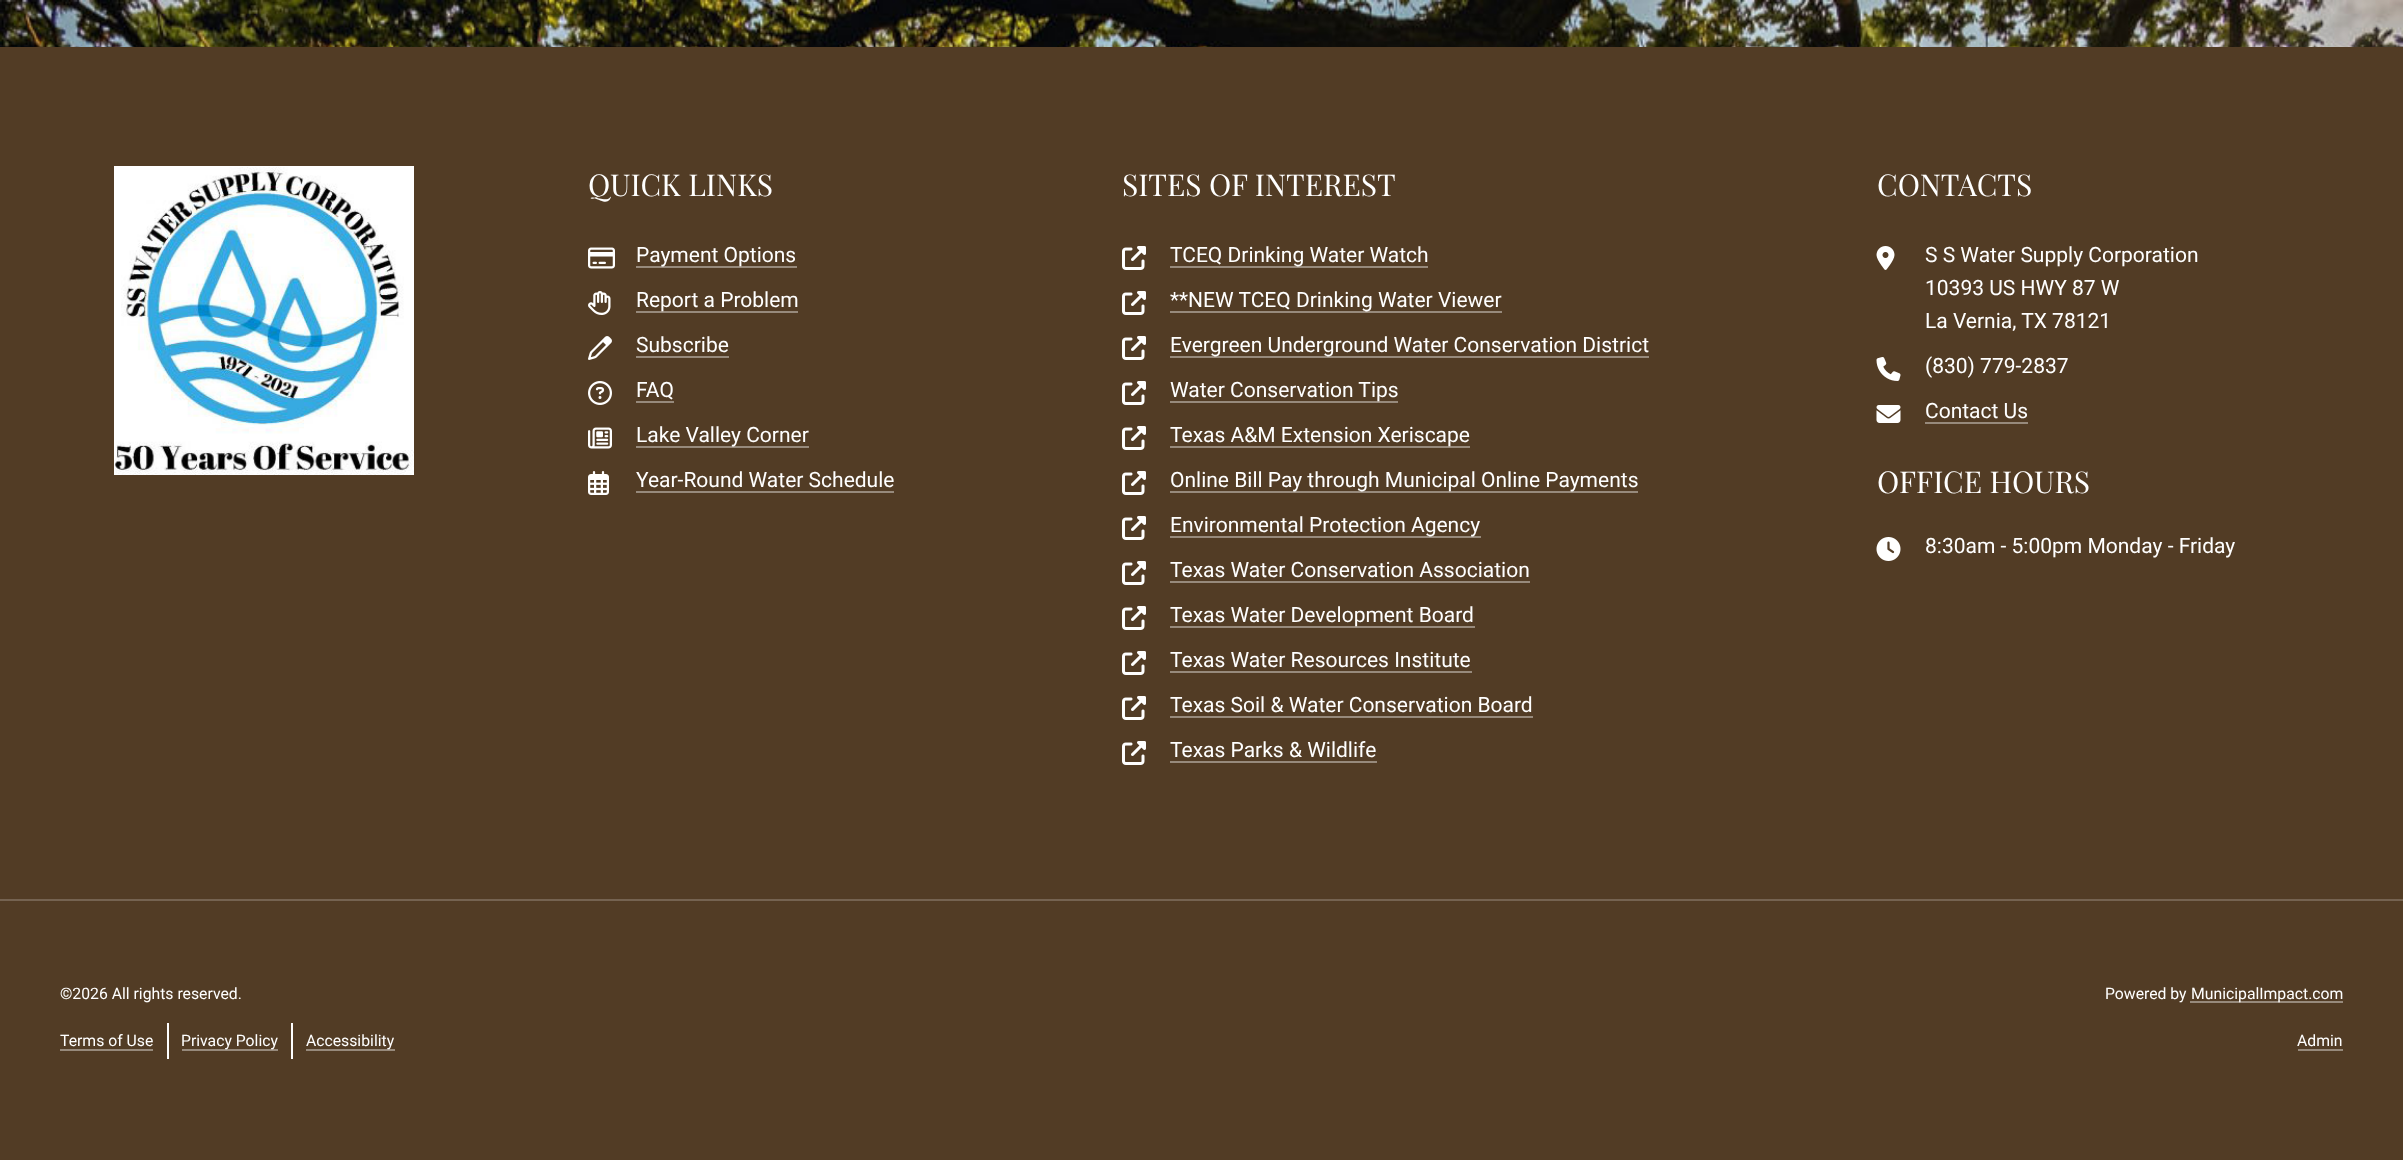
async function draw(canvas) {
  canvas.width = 2403
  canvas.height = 1160
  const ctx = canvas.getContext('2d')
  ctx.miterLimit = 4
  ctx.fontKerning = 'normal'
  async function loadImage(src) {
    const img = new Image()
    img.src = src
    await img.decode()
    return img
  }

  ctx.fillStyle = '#fff'
  ctx.fillRect(0, 0, 2403, 1160)
  ctx.drawImage(await loadImage('image0.png'), 0, 0, 2403, 47)
  ctx.fillStyle = '#523c25'
  ctx.fillRect(0, 47, 2403, 1113)
  ctx.drawImage(await loadImage('image1.png'), 114, 166, 300, 309)
  ctx.font = '30px Playfair Display'
  ctx.fillStyle = '#fff'
  ctx.fillText('QUICK LINKS', 588, 196)
  ctx.drawImage(await loadImage('image2.png'), 588, 247, 27, 22)
  ctx.fillStyle = '#978a7c'
  ctx.fillRect(636, 266, 161, 2)
  ctx.font = '21px Roboto'
  ctx.fillStyle = '#fff'
  ctx.fillText('Payment Options', 636, 262)
  ctx.drawImage(await loadImage('image3.png'), 588, 291, 23, 24)
  ctx.fillStyle = '#978a7c'
  ctx.fillRect(636, 311, 162, 2)
  ctx.fillStyle = '#fff'
  ctx.fillText('Report a Problem', 636, 307)
  ctx.drawImage(await loadImage('image4.png'), 588, 336, 24, 24)
  ctx.fillText('Subscribe', 636, 352)
  ctx.fillStyle = '#978a7c'
  ctx.fillRect(636, 356, 93, 2)
  ctx.drawImage(await loadImage('image5.png'), 588, 381, 24, 24)
  ctx.fillStyle = '#fff'
  ctx.fillText('FAQ', 636, 397)
  ctx.fillStyle = '#978a7c'
  ctx.fillRect(636, 401, 38, 2)
  ctx.drawImage(await loadImage('image6.png'), 588, 427, 24, 22)
  ctx.fillRect(636, 446, 173, 2)
  ctx.fillStyle = '#fff'
  ctx.fillText('Lake Valley Corner', 636, 442)
  ctx.drawImage(await loadImage('image7.png'), 588, 471, 21, 24)
  ctx.fillText('Year-Round Water Schedule', 636, 487)
  ctx.fillStyle = '#978a7c'
  ctx.fillRect(636, 491, 258, 2)
  ctx.font = '30px Playfair Display'
  ctx.fillStyle = '#fff'
  ctx.fillText('SITES OF INTEREST', 1122, 196)
  ctx.drawImage(await loadImage('image8.png'), 1122, 246, 24, 24)
  ctx.fillStyle = '#978a7c'
  ctx.fillRect(1170, 266, 258, 2)
  ctx.font = '21px Roboto'
  ctx.fillStyle = '#fff'
  ctx.fillText('TCEQ Drinking Water Watch', 1170, 262)
  ctx.drawImage(await loadImage('image8.png'), 1122, 291, 24, 24)
  ctx.fillStyle = '#978a7c'
  ctx.fillRect(1170, 311, 332, 2)
  ctx.fillStyle = '#fff'
  ctx.fillText('**NEW TCEQ Drinking Water Viewer', 1170, 307)
  ctx.drawImage(await loadImage('image8.png'), 1122, 336, 24, 24)
  ctx.fillStyle = '#978a7c'
  ctx.fillRect(1170, 356, 479, 2)
  ctx.fillStyle = '#fff'
  ctx.fillText('Evergreen Underground Water Conservation District', 1170, 352)
  ctx.drawImage(await loadImage('image8.png'), 1122, 381, 24, 24)
  ctx.fillStyle = '#978a7c'
  ctx.fillRect(1170, 401, 228, 2)
  ctx.fillStyle = '#fff'
  ctx.fillText('Water Conservation Tips', 1170, 397)
  ctx.drawImage(await loadImage('image8.png'), 1122, 426, 24, 24)
  ctx.fillStyle = '#978a7c'
  ctx.fillRect(1170, 446, 300, 2)
  ctx.fillStyle = '#fff'
  ctx.fillText('Texas A&M Extension Xeriscape', 1170, 442)
  ctx.drawImage(await loadImage('image8.png'), 1122, 471, 24, 24)
  ctx.fillStyle = '#978a7c'
  ctx.fillRect(1170, 491, 468, 2)
  ctx.fillStyle = '#fff'
  ctx.fillText('Online Bill Pay through Municipal Online Payments', 1170, 487)
  ctx.drawImage(await loadImage('image8.png'), 1122, 516, 24, 24)
  ctx.fillStyle = '#978a7c'
  ctx.fillRect(1170, 536, 311, 2)
  ctx.fillStyle = '#fff'
  ctx.fillText('Environmental Protection Agency', 1170, 532)
  ctx.drawImage(await loadImage('image8.png'), 1122, 561, 24, 24)
  ctx.fillText('Texas Water Conservation Association', 1170, 577)
  ctx.fillStyle = '#978a7c'
  ctx.fillRect(1170, 581, 360, 2)
  ctx.drawImage(await loadImage('image8.png'), 1122, 606, 24, 24)
  ctx.fillRect(1170, 626, 305, 2)
  ctx.fillStyle = '#fff'
  ctx.fillText('Texas Water Development Board', 1170, 622)
  ctx.drawImage(await loadImage('image8.png'), 1122, 651, 24, 24)
  ctx.fillText('Texas Water Resources Institute', 1170, 667)
  ctx.fillStyle = '#978a7c'
  ctx.fillRect(1170, 671, 302, 2)
  ctx.drawImage(await loadImage('image8.png'), 1122, 696, 24, 24)
  ctx.fillStyle = '#fff'
  ctx.fillText('Texas Soil & Water Conservation Board', 1170, 712)
  ctx.fillStyle = '#978a7c'
  ctx.fillRect(1170, 716, 363, 2)
  ctx.drawImage(await loadImage('image8.png'), 1122, 741, 24, 24)
  ctx.fillStyle = '#fff'
  ctx.fillText('Texas Parks & Wildlife', 1170, 757)
  ctx.fillStyle = '#978a7c'
  ctx.fillRect(1170, 761, 207, 2)
  ctx.font = '30px Playfair Display'
  ctx.fillStyle = '#fff'
  ctx.fillText('CONTACTS', 1877, 196)
  ctx.drawImage(await loadImage('image9.png'), 1876, 246, 19, 24)
  ctx.font = '21px Roboto'
  ctx.fillText('S S Water Supply Corporation', 1925, 262)
  ctx.fillText('10393 US HWY 87 W', 1925, 295)
  ctx.fillText('La Vernia, TX 78121', 1925, 328)
  ctx.drawImage(await loadImage('image10.png'), 1876, 357, 25, 24)
  ctx.fillText('(830) 779-2837', 1925, 373)
  ctx.drawImage(await loadImage('image11.png'), 1876, 405, 25, 18)
  ctx.fillText('Contact Us', 1925, 418)
  ctx.fillStyle = '#978a7c'
  ctx.fillRect(1925, 422, 103, 2)
  ctx.font = '30px Playfair Display'
  ctx.fillStyle = '#fff'
  ctx.fillText('OFFICE HOURS', 1877, 493)
  ctx.drawImage(await loadImage('image12.png'), 1876, 537, 25, 24)
  ctx.font = '21px Roboto'
  ctx.fillText('8:30am - 5:00pm Monday - Friday', 1925, 553)
  ctx.fillStyle = '#756351'
  ctx.fillRect(0, 899, 2403, 2)
  ctx.font = '15.75px Roboto'
  ctx.fillStyle = '#fff'
  ctx.fillText('©2026 All rights reserved.', 60, 999)
  ctx.fillText('Terms of Use', 60, 1046)
  ctx.fillStyle = '#978a7c'
  ctx.fillRect(60, 1049, 93, 2)
  ctx.fillStyle = '#fff'
  ctx.fillRect(167, 1023, 2, 36)
  ctx.fillStyle = '#978a7c'
  ctx.fillRect(182, 1049, 96, 2)
  ctx.fillStyle = '#fff'
  ctx.fillText('Privacy Policy', 181, 1046)
  ctx.fillRect(291, 1023, 2, 36)
  ctx.fillStyle = '#978a7c'
  ctx.fillRect(306, 1049, 89, 2)
  ctx.fillStyle = '#fff'
  ctx.fillText('Accessibility', 306, 1046)
  ctx.fillText('Powered by', 2105, 999)
  ctx.fillStyle = '#978a7c'
  ctx.fillRect(2190, 1001, 153, 2)
  ctx.fillStyle = '#fff'
  ctx.fillText('MunicipalImpact.com', 2191, 999)
  ctx.fillText('Admin', 2297, 1046)
  ctx.fillStyle = '#978a7c'
  ctx.fillRect(2298, 1049, 45, 2)
}

draw(document.querySelector('canvas'))
